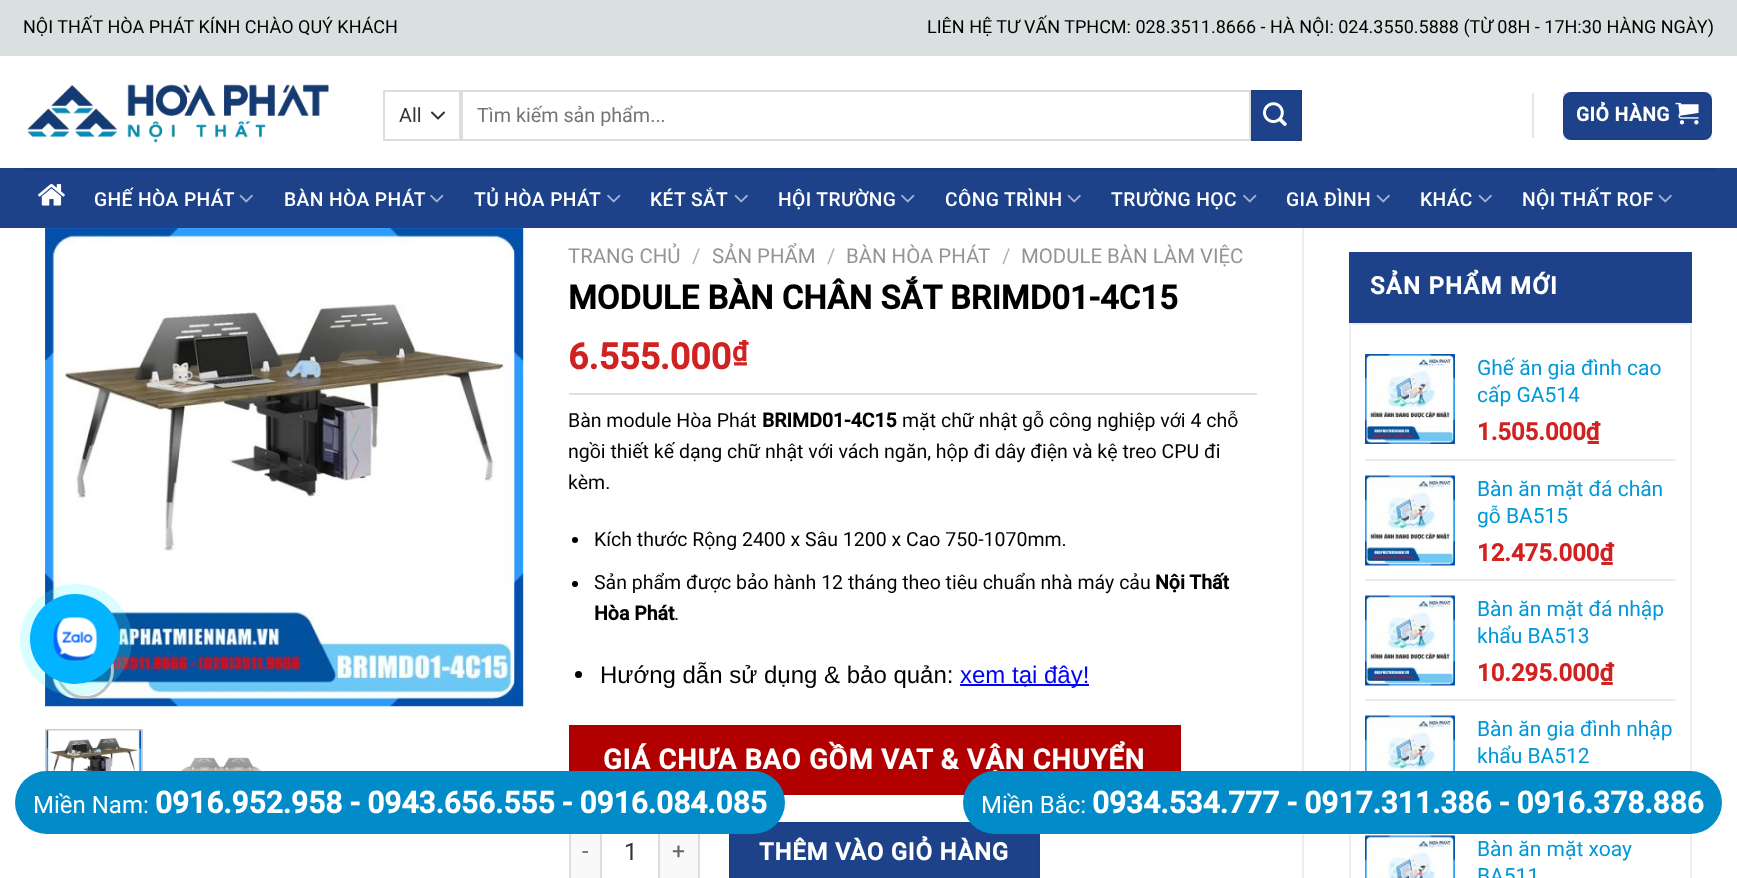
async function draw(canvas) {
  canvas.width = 1737
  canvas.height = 878
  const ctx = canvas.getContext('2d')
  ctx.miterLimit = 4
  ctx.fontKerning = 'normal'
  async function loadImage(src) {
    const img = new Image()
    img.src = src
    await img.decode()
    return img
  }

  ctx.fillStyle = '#fff'
  ctx.fillRect(0, 0, 1737, 878)
  ctx.fillStyle = '#d9e0e0'
  ctx.fillRect(0, 0, 1737, 56)
  ctx.font = '18px Roboto'
  ctx.fillStyle = '#000'
  ctx.fillText('NỘI THẤT HÒA PHÁT KÍNH CHÀO QUÝ KHÁCH', 23, 33)
  ctx.fillText('LIÊN HỆ TƯ VẤN TPHCM: 028.3511.8666 - HÀ NỘI: 024.3550.5888 (TỪ 08H - 17H:30 HÀNG NGÀY)', 927, 33)
  ctx.drawImage(await loadImage('image0.png'), 27, 84, 302, 59)
  ctx.beginPath()
  ctx.moveTo(432, 112.5)
  ctx.lineTo(438, 118.5)
  ctx.lineTo(444, 112.5)
  ctx.strokeStyle = '#333'
  ctx.lineWidth = 2
  ctx.lineCap = 'round'
  ctx.lineJoin = 'round'
  ctx.stroke()
  ctx.strokeStyle = '#ddd'
  ctx.lineJoin = 'miter'
  ctx.strokeRect(384, 91, 76, 49)
  ctx.font = '19.75px Roboto'
  ctx.fillStyle = '#333'
  ctx.fillText('All', 399, 122)
  ctx.strokeRect(462, 91, 788, 49)
  ctx.fillStyle = '#757575'
  ctx.fillText('Tìm kiếm sản phẩm...', 477, 122)
  ctx.fillStyle = '#1e428a'
  ctx.beginPath()
  ctx.rect(1252, 91, 49, 49)
  ctx.fill()
  ctx.strokeStyle = '#1d3f83'
  ctx.stroke()
  ctx.drawImage(await loadImage('image1.png'), 1263, 102, 24, 24)
  ctx.fillStyle = '#e6e6e6'
  ctx.fillRect(1532, 93, 2, 45)
  ctx.fillStyle = '#1e428a'
  ctx.beginPath()
  ctx.roundRect(1563, 92, 149, 48, 8)
  ctx.fill()
  ctx.strokeStyle = '#0000000d'
  ctx.strokeRect(1564, 93, 147, 46)
  ctx.letterSpacing = '0.5px'
  ctx.font = 'bold 19.25px Roboto'
  ctx.fillStyle = '#fff'
  ctx.fillText('GIỎ HÀNG', 1576, 121)
  ctx.drawImage(await loadImage('image2.png'), 1675, 102, 24, 23)
  ctx.fillStyle = '#1e428a'
  ctx.fillRect(0, 168, 1737, 60)
  ctx.fillStyle = '#1b3b7c'
  ctx.fillRect(23, 168, 1692, 2)
  ctx.drawImage(await loadImage('image3.png'), 38, 184, 27, 22)
  ctx.letterSpacing = '0.4px'
  ctx.font = '500 19.25px Roboto'
  ctx.fillStyle = '#fff'
  ctx.fillText('GHẾ HÒA PHÁT', 94, 206)
  ctx.drawImage(await loadImage('image4.png'), 239, 194, 14, 9)
  ctx.fillText('BÀN HÒA PHÁT', 284, 206)
  ctx.drawImage(await loadImage('image5.png'), 430, 194, 14, 9)
  ctx.fillText('TỦ HÒA PHÁT', 474, 206)
  ctx.drawImage(await loadImage('image5.png'), 607, 194, 14, 9)
  ctx.fillText('KÉT SẮT', 650, 206)
  ctx.drawImage(await loadImage('image4.png'), 734, 194, 14, 9)
  ctx.fillText('HỘI TRƯỜNG', 778, 206)
  ctx.drawImage(await loadImage('image5.png'), 901, 194, 14, 9)
  ctx.fillText('CÔNG TRÌNH', 945, 206)
  ctx.drawImage(await loadImage('image4.png'), 1067, 194, 14, 9)
  ctx.fillText('TRƯỜNG HỌC', 1111, 206)
  ctx.drawImage(await loadImage('image5.png'), 1243, 194, 14, 9)
  ctx.fillText('GIA ĐÌNH', 1286, 206)
  ctx.drawImage(await loadImage('image4.png'), 1376, 194, 14, 9)
  ctx.fillText('KHÁC', 1420, 206)
  ctx.drawImage(await loadImage('image4.png'), 1478, 194, 14, 9)
  ctx.fillText('NỘI THẤT ROF', 1522, 206)
  ctx.drawImage(await loadImage('image4.png'), 1658, 194, 14, 9)
  ctx.fillStyle = '#ececec'
  ctx.fillRect(1302, 228, 2, 650)
  ctx.drawImage(await loadImage('image6.png'), 45, 228, 479, 479)
  ctx.fillStyle = '#ffffff40'
  ctx.fillRect(523, 228, 1, 478)
  ctx.beginPath()
  ctx.arc(85, 670, 27.5, 0, 2 * Math.PI)
  ctx.strokeStyle = '#c0c0c0'
  ctx.lineWidth = 3
  ctx.stroke()
  ctx.strokeStyle = '#ccc'
  ctx.lineWidth = 2
  ctx.strokeRect(46, 730, 96, 88)
  ctx.drawImage(await loadImage('image7.png'), 46, 730, 95, 41)
  ctx.drawImage(await loadImage('image8.png'), 178, 757, 86, 14)
  ctx.letterSpacing = '0px'
  ctx.font = '20.4px Roboto'
  ctx.fillStyle = '#949494'
  ctx.fillText('TRANG CHỦ', 568, 263)
  ctx.fillStyle = '#b2b2b2'
  ctx.fillText('/', 692, 263)
  ctx.fillStyle = '#949494'
  ctx.fillText('SẢN PHẨM', 712, 263)
  ctx.fillStyle = '#b2b2b2'
  ctx.fillText('/', 827, 263)
  ctx.fillStyle = '#949494'
  ctx.fillText('BÀN HÒA PHÁT', 846, 263)
  ctx.fillStyle = '#b2b2b2'
  ctx.fillText('/', 1002, 263)
  ctx.fillStyle = '#949494'
  ctx.fillText('MODULE BÀN LÀM VIỆC', 1021, 263)
  ctx.font = 'bold 33px Roboto'
  ctx.fillStyle = '#000'
  ctx.fillText('MODULE BÀN CHÂN SẮT BRIMD01-4C15', 568, 309)
  ctx.font = 'bold 36px Roboto'
  ctx.fillStyle = '#d12222'
  ctx.fillText('6.555.000', 568, 369)
  ctx.font = 'bold 27px Roboto'
  ctx.fillText('₫', 732, 361)
  ctx.fillStyle = '#dfdfdf'
  ctx.fillRect(569, 393, 688, 2)
  ctx.font = '19.5px Roboto'
  ctx.fillStyle = '#000'
  ctx.fillText('Bàn module Hòa Phát', 568, 427)
  ctx.font = 'bold 19.5px Roboto'
  ctx.fillText('BRIMD01-4C15', 762, 427)
  ctx.font = '19.5px Roboto'
  ctx.fillText('mặt chữ nhật gỗ công nghiệp với 4 chỗ', 902, 427)
  ctx.fillText('ngồi thiết kế dạng chữ nhật với vách ngăn, hộp đi dây điện và kệ treo CPU đi', 568, 458)
  ctx.fillText('kèm.', 568, 489)
  ctx.beginPath()
  ctx.arc(575, 540, 3, 0, 2 * Math.PI)
  ctx.fill()
  ctx.fillText('Kích thước Rộng 2400 x Sâu 1200 x Cao 750-1070mm.', 594, 546)
  ctx.beginPath()
  ctx.arc(575, 584, 3, 0, 2 * Math.PI)
  ctx.fill()
  ctx.fillText('Sản phẩm được bảo hành 12 tháng theo tiêu chuẩn nhà máy cảu', 594, 589)
  ctx.font = 'bold 19.5px Roboto'
  ctx.fillText('Nội Thất', 1155, 589)
  ctx.fillText('Hòa Phát', 594, 620)
  ctx.font = '19.5px Roboto'
  ctx.fillText('.', 674, 620)
  ctx.beginPath()
  ctx.arc(578.5, 674.5, 3.5, 0, 2 * Math.PI)
  ctx.fill()
  ctx.font = '24px Liberation Sans'
  ctx.fillText('Hướng dẫn sử dụng & bảo quản:', 600, 683)
  ctx.fillStyle = '#00f'
  ctx.fillRect(960, 684, 129, 2)
  ctx.fillText('xem tại đây!', 960, 683)
  ctx.fillStyle = '#b20000'
  ctx.beginPath()
  ctx.rect(570, 726, 610, 68)
  ctx.fill()
  ctx.strokeStyle = '#a90000'
  ctx.stroke()
  ctx.letterSpacing = '0.8px'
  ctx.font = 'bold 27.6px Roboto'
  ctx.fillStyle = '#fff'
  ctx.fillText('GIÁ CHƯA BAO GỒM VAT & VẬN CHUYỂN', 603, 769)
  ctx.fillStyle = '#f9f9f9'
  ctx.fillRect(571, 834, 29, 44)
  ctx.fillStyle = '#ddd'
  ctx.fillRect(569, 834, 2, 44)
  ctx.letterSpacing = '1px'
  ctx.font = '23px Roboto'
  ctx.fillStyle = '#666'
  ctx.fillText('-', 582, 859)
  ctx.strokeStyle = '#ddd'
  ctx.strokeRect(601, 823, 58, 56)
  ctx.letterSpacing = '0px'
  ctx.font = '24px Roboto'
  ctx.fillStyle = '#333'
  ctx.fillText('1', 624, 860)
  ctx.fillStyle = '#f9f9f9'
  ctx.fillRect(660, 834, 38, 44)
  ctx.fillStyle = '#ddd'
  ctx.fillRect(698, 834, 2, 44)
  ctx.letterSpacing = '1px'
  ctx.font = '23px Roboto'
  ctx.fillStyle = '#666'
  ctx.fillText('+', 672, 859)
  ctx.fillStyle = '#1e428a'
  ctx.beginPath()
  ctx.rect(730, 823, 309, 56)
  ctx.fill()
  ctx.strokeStyle = '#1d3f83'
  ctx.stroke()
  ctx.letterSpacing = '0.75px'
  ctx.font = 'bold 24px Roboto'
  ctx.fillStyle = '#fff'
  ctx.fillText('THÊM VÀO GIỎ HÀNG', 759, 860)
  ctx.fillStyle = '#1e428a'
  ctx.fillRect(1349, 252, 343, 71)
  ctx.letterSpacing = '1.25px'
  ctx.fillStyle = '#fff'
  ctx.fillText('SẢN PHẨM MỚI', 1370, 294)
  ctx.strokeStyle = '#eee'
  ctx.strokeRect(1350, 324, 341, 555)
  ctx.drawImage(await loadImage('image9.png'), 1365, 354, 90, 90)
  ctx.letterSpacing = '0px'
  ctx.font = '21px Roboto'
  ctx.fillStyle = '#0098d8'
  ctx.fillText('Ghế ăn gia đình cao', 1477, 375)
  ctx.save()
  ctx.beginPath()
  ctx.rect(1478, 354, 198, 54)
  ctx.clip()
  ctx.fillText('cấp GA514', 1477, 402)
  ctx.restore()
  ctx.font = 'bold 24px Roboto'
  ctx.fillStyle = '#d12222'
  ctx.fillText('1.505.000₫', 1477, 440)
  ctx.fillStyle = '#ececec'
  ctx.fillRect(1365, 459, 311, 2)
  ctx.drawImage(await loadImage('image10.png'), 1365, 475, 90, 91)
  ctx.font = '21px Roboto'
  ctx.fillStyle = '#0098d8'
  ctx.fillText('Bàn ăn mặt đá chân', 1477, 496)
  ctx.save()
  ctx.beginPath()
  ctx.rect(1478, 476, 198, 54)
  ctx.clip()
  ctx.fillText('gỗ BA515', 1477, 523)
  ctx.restore()
  ctx.font = 'bold 24px Roboto'
  ctx.fillStyle = '#d12222'
  ctx.fillText('12.475.000₫', 1477, 561)
  ctx.fillStyle = '#ececec'
  ctx.fillRect(1365, 579, 311, 2)
  ctx.drawImage(await loadImage('image11.png'), 1365, 595, 90, 91)
  ctx.font = '21px Roboto'
  ctx.fillStyle = '#0098d8'
  ctx.fillText('Bàn ăn mặt đá nhập', 1477, 616)
  ctx.fillText('khẩu BA513', 1477, 643)
  ctx.font = 'bold 24px Roboto'
  ctx.fillStyle = '#d12222'
  ctx.fillText('10.295.000₫', 1477, 681)
  ctx.fillStyle = '#ececec'
  ctx.fillRect(1365, 699, 311, 2)
  ctx.drawImage(await loadImage('image12.png'), 1365, 715, 90, 56)
  ctx.font = '21px Roboto'
  ctx.fillStyle = '#0098d8'
  ctx.fillText('Bàn ăn gia đình nhập', 1477, 736)
  ctx.fillText('khẩu BA512', 1477, 763)
  ctx.drawImage(await loadImage('image13.png'), 1365, 835, 90, 43)
  ctx.fillText('Bàn ăn mặt xoay', 1477, 856)
  ctx.fillText('BA511', 1477, 883)
  ctx.fillStyle = '#46fafd33'
  ctx.beginPath()
  ctx.arc(76, 640, 56, 0, 2 * Math.PI)
  ctx.fill()
  ctx.fillStyle = '#02b3ff'
  ctx.beginPath()
  ctx.arc(75, 639, 45, 0, 2 * Math.PI)
  ctx.fill()
  ctx.drawImage(await loadImage('image14.png'), 52, 616, 46, 46)
  ctx.fillStyle = '#018bc8'
  ctx.beginPath()
  ctx.roundRect(15, 771, 770, 63, 31.5)
  ctx.fill()
  ctx.font = '24px Roboto'
  ctx.fillStyle = '#fff'
  ctx.fillText('Miền Nam:', 33, 813)
  ctx.font = 'bold 30px Roboto'
  ctx.fillText('0916.952.958 - 0943.656.555 - 0916.084.085', 155, 813)
  ctx.fillStyle = '#018bc8'
  ctx.beginPath()
  ctx.roundRect(963, 771, 759, 63, 31.5)
  ctx.fill()
  ctx.font = '24px Roboto'
  ctx.fillStyle = '#fff'
  ctx.fillText('Miền Bắc:', 981, 813)
  ctx.font = 'bold 30px Roboto'
  ctx.fillText('0934.534.777 - 0917.311.386 - 0916.378.886', 1092, 813)
}

draw(document.querySelector('canvas'))
